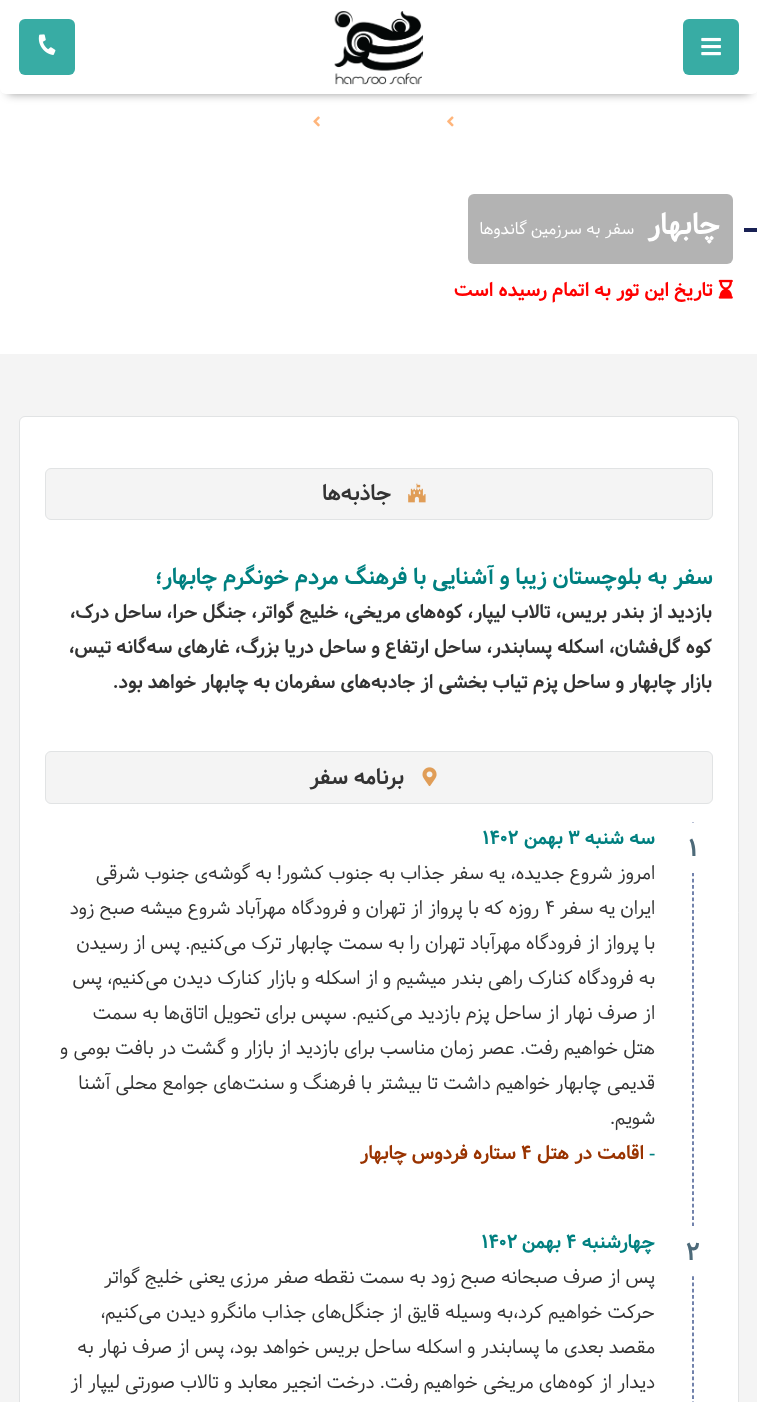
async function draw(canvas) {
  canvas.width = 757
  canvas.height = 1402
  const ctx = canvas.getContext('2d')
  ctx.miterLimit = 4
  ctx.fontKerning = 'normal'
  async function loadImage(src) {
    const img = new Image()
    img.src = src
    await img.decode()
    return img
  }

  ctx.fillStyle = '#fff'
  ctx.fillRect(0, 0, 757, 1402)
  ctx.fillStyle = '#00000066'
  ctx.filter = 'blur(5px)'
  ctx.beginPath()
  ctx.rect(8, 15, 742, 79)
  ctx.fill()
  ctx.filter = 'none'
  ctx.fillStyle = '#fff'
  ctx.beginPath()
  ctx.roundRect(0, 0, 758, 94, 6)
  ctx.fill()
  ctx.fillStyle = '#38aca4'
  ctx.beginPath()
  ctx.roundRect(683, 19, 56, 56, 6)
  ctx.fill()
  ctx.drawImage(await loadImage('image0.png'), 701, 37, 20, 19)
  ctx.drawImage(await loadImage('image1.png'), 334, 11, 90, 74)
  ctx.beginPath()
  ctx.roundRect(19, 19, 56, 56, 6)
  ctx.fill()
  ctx.drawImage(await loadImage('image2.png'), 38, 34, 18, 21)
  ctx.drawImage(await loadImage('image3.png'), 447, 116, 7, 11)
  ctx.drawImage(await loadImage('image4.png'), 313, 116, 7, 11)
  ctx.fillStyle = '#b3b3b3'
  ctx.beginPath()
  ctx.roundRect(468, 194, 265, 70, 6)
  ctx.fill()
  ctx.fillStyle = '#192154'
  ctx.fillRect(744, 228, 13, 4)
  ctx.direction = 'rtl'
  ctx.font = 'bold 29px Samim'
  ctx.fillStyle = '#fff'
  ctx.fillText('چابهار', 720, 234)
  ctx.font = '16.25px Samim'
  ctx.fillText('سفر به سرزمین گاندوها', 634, 234)
  ctx.drawImage(await loadImage('image5.png'), 718, 279, 15, 20)
  ctx.font = 'bold 18.75px Samim'
  ctx.fillStyle = '#f00'
  ctx.fillText('تاریخ این تور به اتمام رسیده است', 713, 296)
  ctx.fillStyle = '#f4f4f4'
  ctx.fillRect(0, 354, 757, 1048)
  ctx.fillStyle = '#fff'
  ctx.beginPath()
  ctx.roundRect(19.5, 416.5, 719, 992, 5.5)
  ctx.fill()
  ctx.strokeStyle = '#e1e3e4'
  ctx.stroke()
  ctx.fillStyle = '#f4f4f4'
  ctx.beginPath()
  ctx.roundRect(45.5, 468.5, 667, 51, 5.5)
  ctx.fill()
  ctx.stroke()
  ctx.drawImage(await loadImage('image6.png'), 408, 483, 18, 20)
  ctx.font = 'bold 21.25px Samim'
  ctx.fillStyle = '#333'
  ctx.fillText('جاذبه‌ها', 391, 500)
  ctx.font = 'bold 21.95px Samim'
  ctx.fillStyle = '#008080'
  ctx.fillText('سفر به بلوچستان زیبا و آشنایی با فرهنگ مردم خونگرم چابهار؛', 713, 584)
  ctx.font = 'bold 18.75px Samim'
  ctx.fillStyle = '#333'
  ctx.fillText('بازدید از بندر بریس، تالاب لیپار، کوه‌های مریخی، خلیج گواتر، جنگل حرا، ساحل درک،', 712, 618)
  ctx.fillText('کوه گل‌فشان، اسکله پسابندر، ساحل ارتفاع و ساحل دریا بزرگ، غار‌های سه‌گانه تیس،', 712, 653)
  ctx.fillText('بازار چابهار و ساحل پزم تیاب بخشی از جادبه‌های سفرمان به چابهار خواهد بود.', 712, 688)
  ctx.fillStyle = '#f4f4f4'
  ctx.beginPath()
  ctx.roundRect(45.5, 751.5, 667, 52, 5.5)
  ctx.fill()
  ctx.stroke()
  ctx.drawImage(await loadImage('image7.png'), 422, 767, 15, 20)
  ctx.font = 'bold 21.25px Samim'
  ctx.fillStyle = '#333'
  ctx.fillText('برنامه سفر', 404, 784)
  ctx.beginPath()
  ctx.moveTo(693, 822.5)
  ctx.lineTo(693, 1226)
  ctx.strokeStyle = '#143075'
  ctx.lineWidth = 1.2
  ctx.setLineDash([3.75, 2.5])
  ctx.stroke()
  ctx.fillStyle = '#fff'
  ctx.fillRect(692, 823, 2, 50)
  ctx.direction = 'ltr'
  ctx.font = 'bold 24px Samim'
  ctx.fillStyle = '#4d6a79'
  ctx.fillText('1', 688, 856)
  ctx.direction = 'rtl'
  ctx.font = 'bold 18.75px Samim'
  ctx.fillStyle = '#008080'
  ctx.fillText('سه شنبه', 655, 844)
  ctx.direction = 'ltr'
  ctx.fillText('3', 568, 844)
  ctx.direction = 'rtl'
  ctx.fillText('بهمن', 563, 844)
  ctx.direction = 'ltr'
  ctx.fillText('1402', 482, 844)
  ctx.direction = 'rtl'
  ctx.font = '18.75px Samim'
  ctx.fillStyle = '#333'
  ctx.fillText('امروز شروع جدیده، یه سفر جذاب به جنوب کشور! به گوشه‌ی جنوب شرقی', 655, 879)
  ctx.fillText('ایران یه سفر', 655, 914)
  ctx.direction = 'ltr'
  ctx.fillText('4', 545, 914)
  ctx.direction = 'rtl'
  ctx.fillText('روزه که با پرواز از تهران و فرودگاه مهرآباد شروع میشه صبح زود', 539, 914)
  ctx.fillText('با پرواز از فرودگاه مهرآباد تهران را به سمت چابهار ترک می‌کنیم. پس از رسیدن', 655, 949)
  ctx.fillText('به فرودگاه کنارک راهی بندر میشیم و از اسکله و بازار کنارک دیدن می‌کنیم، پس', 655, 984)
  ctx.fillText('از صرف نهار از ساحل پزم بازدید می‌کنیم. سپس برای تحویل اتاق‌ها به سمت', 655, 1019)
  ctx.fillText('هتل خواهیم رفت. عصر زمان مناسب برای بازدید از بازار و گشت در بافت بومی و', 655, 1054)
  ctx.fillText('قدیمی چابهار خواهیم داشت تا بیشتر با فرهنگ و سنت‌های جوامع محلی آشنا', 655, 1089)
  ctx.fillText('شویم.', 655, 1124)
  ctx.direction = 'ltr'
  ctx.font = 'bold 18.75px Liberation Serif'
  ctx.fillStyle = '#008080'
  ctx.fillText('-', 649, 1159)
  ctx.direction = 'rtl'
  ctx.font = 'bold 18.75px Samim'
  ctx.fillStyle = '#930'
  ctx.fillText('اقامت در هتل', 644, 1159)
  ctx.direction = 'ltr'
  ctx.fillText('4', 521, 1159)
  ctx.direction = 'rtl'
  ctx.fillText('ستاره فردوس چابهار', 516, 1159)
  ctx.beginPath()
  ctx.moveTo(693, 1226)
  ctx.lineTo(693, 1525)
  ctx.setLineDash([3.75, 2.52])
  ctx.stroke()
  ctx.fillStyle = '#fff'
  ctx.fillRect(692, 1226, 2, 48)
  ctx.direction = 'ltr'
  ctx.font = 'bold 24px Samim'
  ctx.fillStyle = '#4d6a79'
  ctx.fillText('2', 686, 1260)
  ctx.direction = 'rtl'
  ctx.font = 'bold 18.75px Samim'
  ctx.fillStyle = '#008080'
  ctx.fillText('چهارشنبه', 655, 1248)
  ctx.direction = 'ltr'
  ctx.fillText('4', 566, 1248)
  ctx.direction = 'rtl'
  ctx.fillText('بهمن', 561, 1248)
  ctx.direction = 'ltr'
  ctx.fillText('1402', 481, 1248)
  ctx.direction = 'rtl'
  ctx.font = '18.75px Samim'
  ctx.fillStyle = '#333'
  ctx.fillText('پس از صرف صبحانه صبح زود به سمت نقطه صفر مرزی یعنی خلیج گواتر', 655, 1283)
  ctx.fillText('حرکت خواهیم کرد،به وسیله قایق از جنگل‌های جذاب مانگرو دیدن می‌کنیم،', 655, 1318)
  ctx.fillText('مقصد بعدی ما پسابندر و اسکله ساحل بریس خواهد بود، پس از صرف نهار به', 655, 1353)
  ctx.fillText('دیدار از کوه‌های مریخی خواهیم رفت. درخت انجیر معابد و تالاب صورتی لیپار از', 655, 1388)
}

draw(document.querySelector('canvas'))
